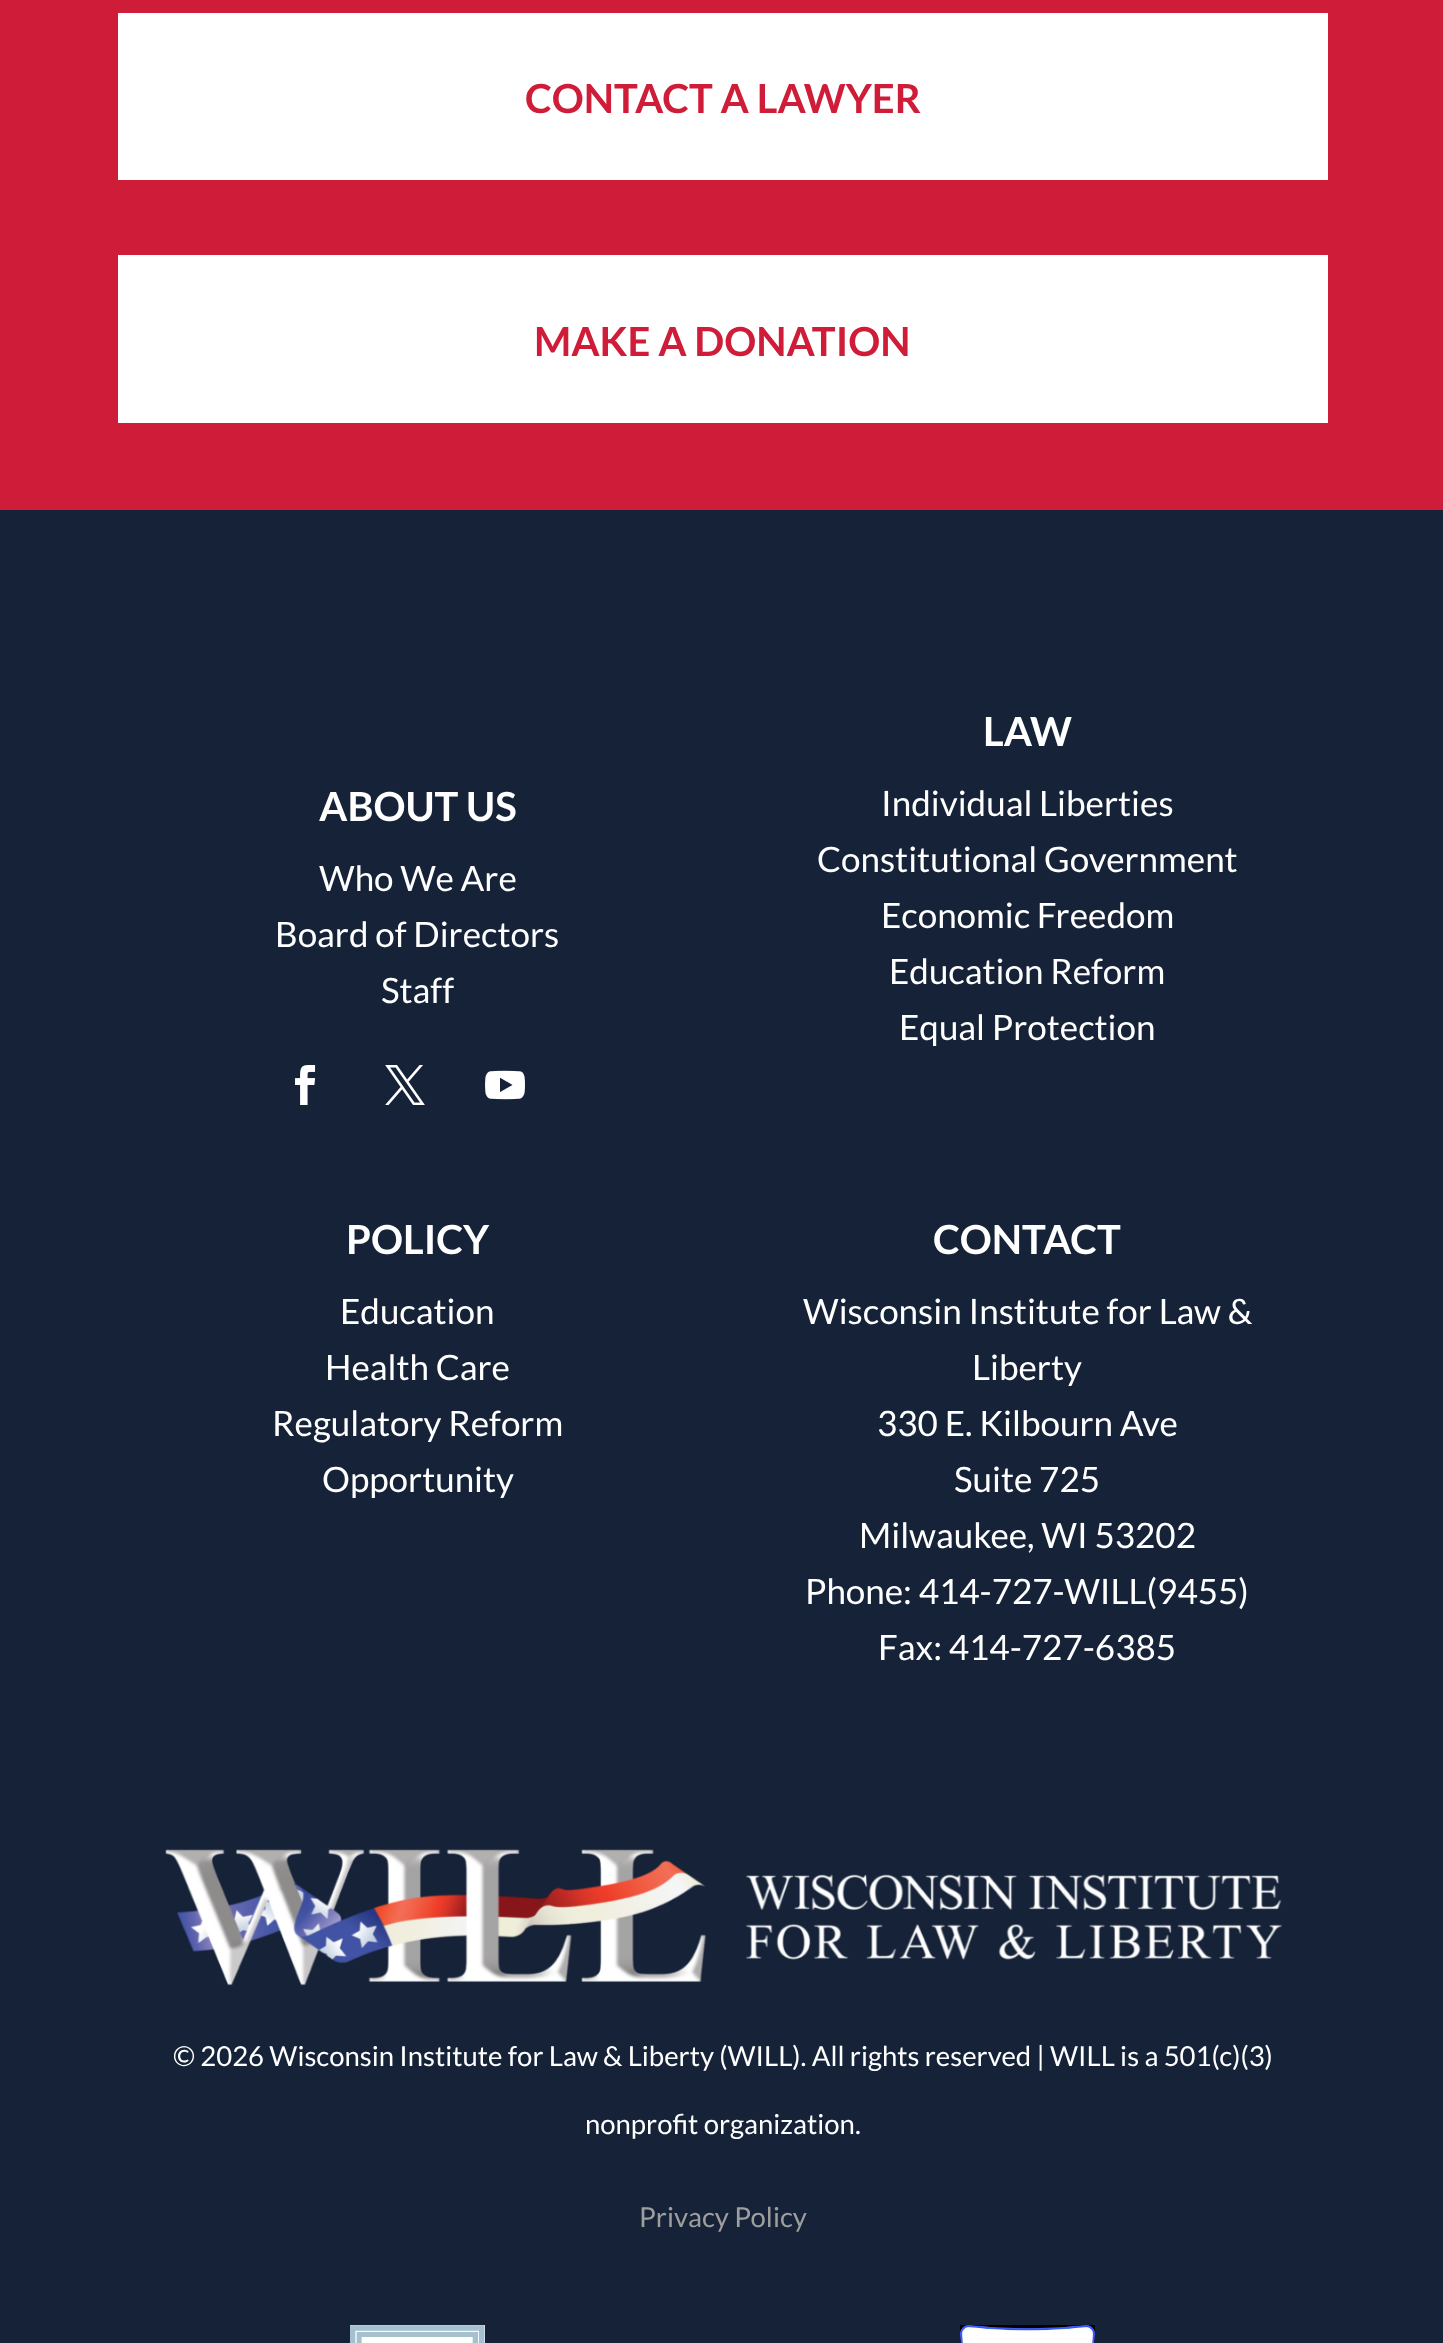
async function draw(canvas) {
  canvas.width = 1443
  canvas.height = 2343
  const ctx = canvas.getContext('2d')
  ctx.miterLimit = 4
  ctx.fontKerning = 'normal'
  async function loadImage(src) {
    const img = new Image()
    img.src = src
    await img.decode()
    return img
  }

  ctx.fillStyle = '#cf1c38'
  ctx.fillRect(0, 0, 1443, 2343)
  ctx.fillStyle = '#fff'
  ctx.fillRect(118, 13, 1210, 167)
  ctx.font = 'bold 40px Lato'
  ctx.fillStyle = '#cf1c38'
  ctx.fillText('CONTACT A LAWYER', 525, 113)
  ctx.fillStyle = '#fff'
  ctx.fillRect(118, 255, 1210, 168)
  ctx.fillStyle = '#cf1c38'
  ctx.fillText('MAKE A DONATION', 534, 356)
  ctx.fillStyle = '#152238'
  ctx.fillRect(0, 510, 1443, 1833)
  ctx.fillStyle = '#fff'
  ctx.fillText('ABOUT US', 319, 821)
  ctx.font = '35px Lato'
  ctx.fillText('Who We Are', 319, 891)
  ctx.fillText('Board of Directors', 275, 947)
  ctx.fillText('Staff', 381, 1003)
  ctx.drawImage(await loadImage('image0.png'), 295, 1065, 21, 40)
  ctx.drawImage(await loadImage('image1.png'), 385, 1065, 40, 40)
  ctx.drawImage(await loadImage('image2.png'), 485, 1070, 40, 30)
  ctx.font = 'bold 40px Lato'
  ctx.fillText('LAW', 983, 746)
  ctx.font = '35px Lato'
  ctx.fillText('Individual Liberties', 881, 816)
  ctx.fillText('Constitutional Government', 817, 872)
  ctx.fillText('Economic Freedom', 881, 928)
  ctx.fillText('Education Reform', 889, 984)
  ctx.fillText('Equal Protection', 899, 1040)
  ctx.font = 'bold 40px Lato'
  ctx.fillText('POLICY', 346, 1254)
  ctx.font = '35px Lato'
  ctx.fillText('Education', 340, 1324)
  ctx.fillText('Health Care', 325, 1380)
  ctx.fillText('Regulatory Reform', 272, 1436)
  ctx.fillText('Opportunity', 322, 1492)
  ctx.font = 'bold 40px Lato'
  ctx.fillText('CONTACT', 933, 1254)
  ctx.font = '35px Lato'
  ctx.fillText('Wisconsin Institute for Law &', 803, 1324)
  ctx.fillText('Liberty', 972, 1380)
  ctx.fillText('330 E. Kilbourn Ave', 877, 1436)
  ctx.fillText('Suite 725', 954, 1492)
  ctx.fillText('Milwaukee, WI 53202', 859, 1548)
  ctx.fillText('Phone: 414-727-WILL(9455)', 805, 1604)
  ctx.fillText('Fax: 414-727-6385', 878, 1660)
  ctx.drawImage(await loadImage('image3.png'), 165, 1849, 1117, 137)
  ctx.font = '27.5px Lato'
  ctx.fillText('© 2026 Wisconsin Institute for Law & Liberty (WILL). All rights reserved | WILL is a 501(c)(3)', 173, 2066)
  ctx.fillText('nonprofit organization.', 585, 2134)
  ctx.fillStyle = '#9e9e9e'
  ctx.fillText('Privacy Policy', 639, 2227)
  ctx.drawImage(await loadImage('image4.png'), 350, 2325, 135, 18)
  ctx.drawImage(await loadImage('image5.png'), 960, 2325, 135, 18)
}

draw(document.querySelector('canvas'))
